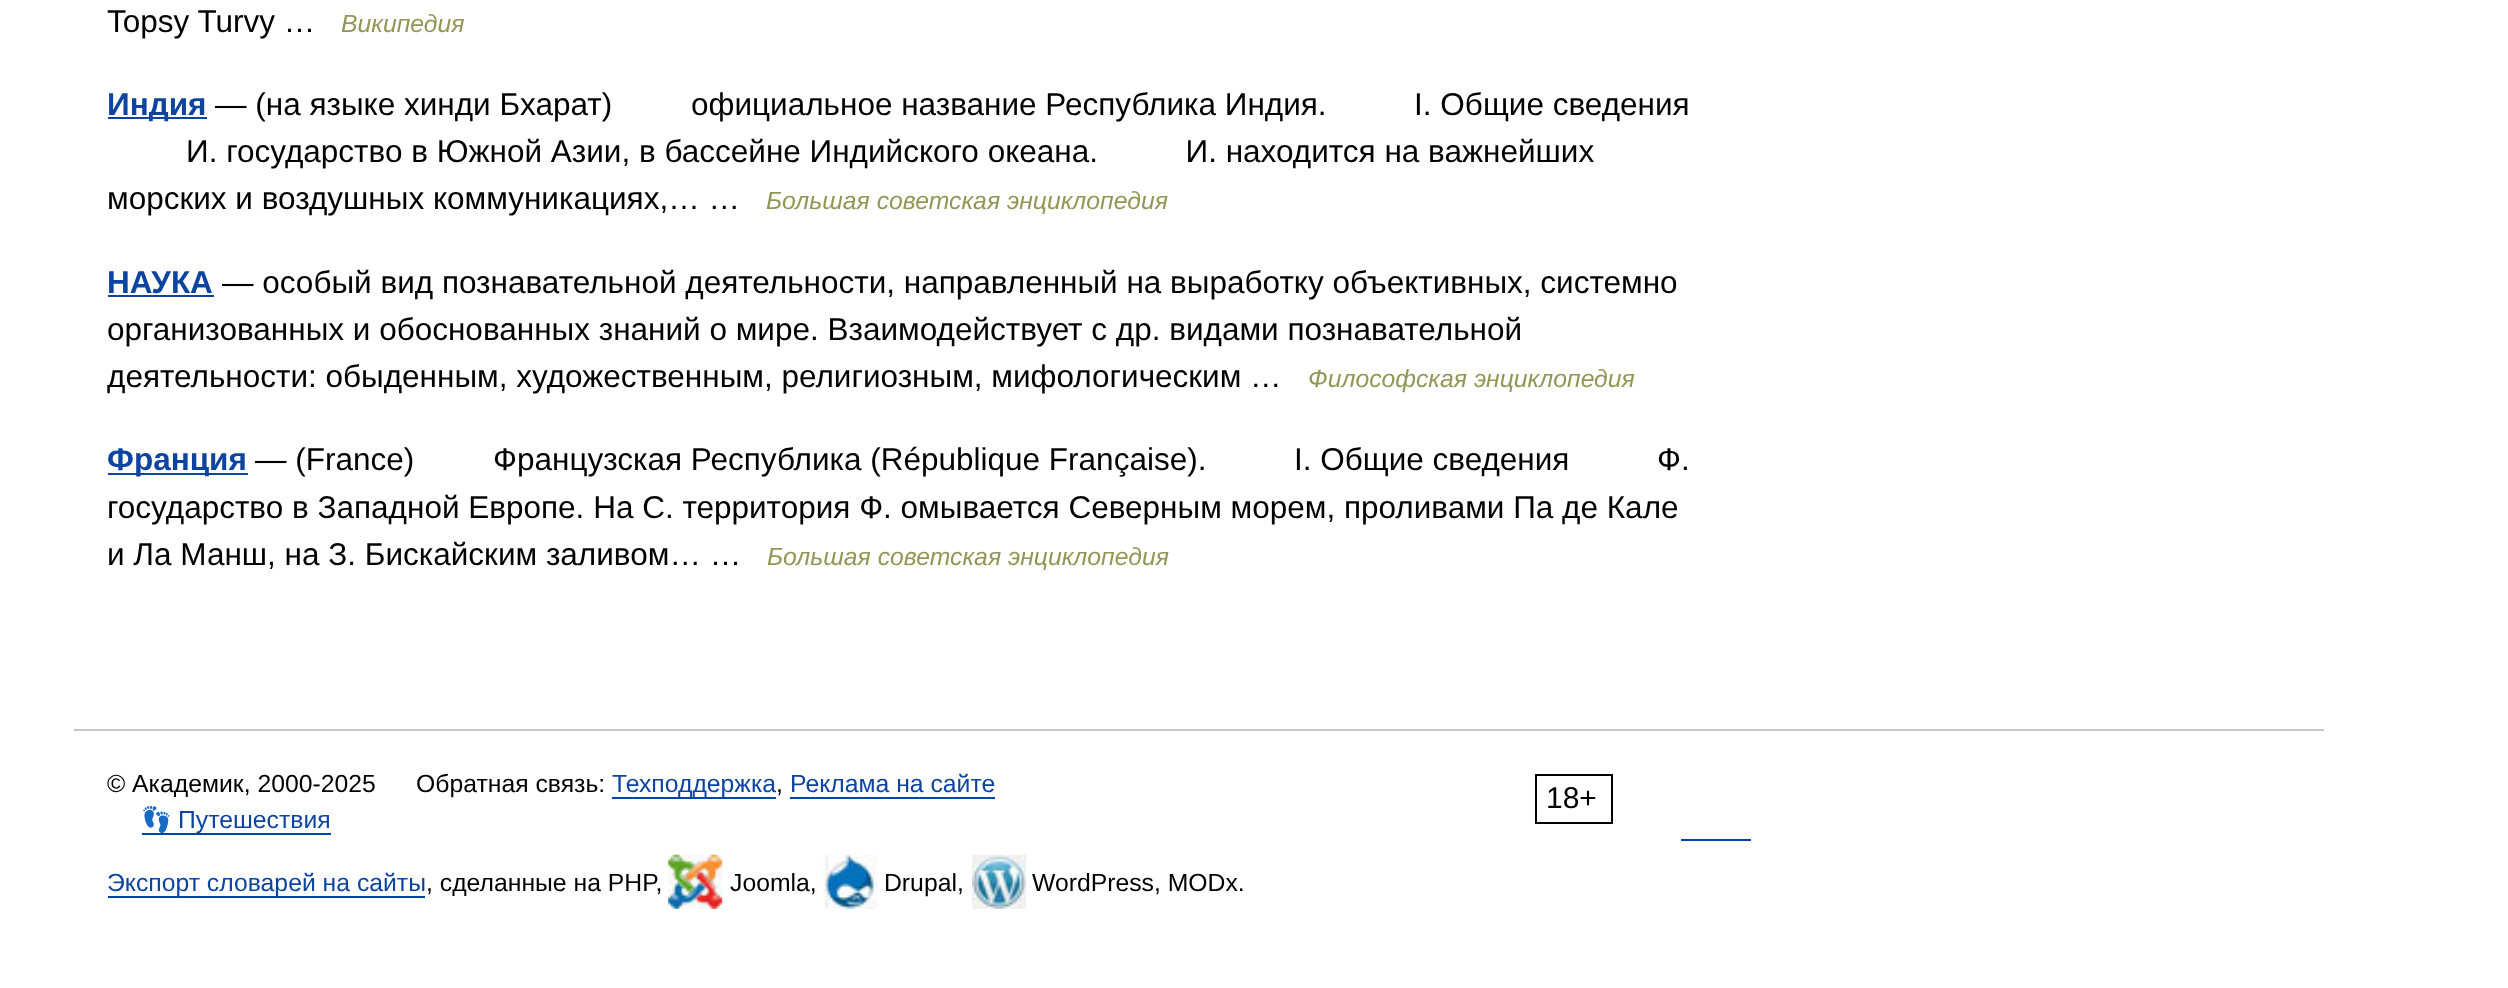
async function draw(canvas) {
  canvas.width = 2508
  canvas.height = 988
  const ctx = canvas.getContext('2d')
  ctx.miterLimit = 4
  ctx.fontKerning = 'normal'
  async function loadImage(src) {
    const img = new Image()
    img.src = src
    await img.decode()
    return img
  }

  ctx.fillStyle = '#fff'
  ctx.fillRect(0, 0, 2508, 988)
  ctx.font = '31.5px Liberation Sans'
  ctx.fillStyle = '#000'
  ctx.fillText('Topsy Turvy …', 107, 32)
  ctx.font = 'italic 24.75px Liberation Sans'
  ctx.fillStyle = '#939756'
  ctx.fillText('Википедия', 341, 32)
  ctx.fillStyle = '#0d44a0'
  ctx.fillRect(108, 117, 99, 2)
  ctx.font = 'bold 31.5px Liberation Sans'
  ctx.fillText('Индия', 107, 115)
  ctx.font = '31.5px Liberation Sans'
  ctx.fillStyle = '#000'
  ctx.fillText('— (на языке хинди Бхарат)         официальное название Республика Индия.          I. Общие сведения', 215, 115)
  ctx.fillText('И. государство в Южной Азии, в бассейне Индийского океана.          И. находится на важнейших', 186, 162)
  ctx.fillText('морских и воздушных коммуникациях,… …', 107, 209)
  ctx.font = 'italic 24.75px Liberation Sans'
  ctx.fillStyle = '#939756'
  ctx.fillText('Большая советская энциклопедия', 766, 209)
  ctx.font = 'bold 31.5px Liberation Sans'
  ctx.fillStyle = '#0d44a0'
  ctx.fillText('НАУКА', 107, 293)
  ctx.fillRect(108, 295, 106, 2)
  ctx.font = '31.5px Liberation Sans'
  ctx.fillStyle = '#000'
  ctx.fillText('— особый вид познавательной деятельности, направленный на выработку объективных, системно', 222, 293)
  ctx.fillText('организованных и обоснованных знаний о мире. Взаимодействует с др. видами познавательной', 107, 340)
  ctx.fillText('деятельности: обыденным, художественным, религиозным, мифологическим …', 107, 387)
  ctx.font = 'italic 24.75px Liberation Sans'
  ctx.fillStyle = '#939756'
  ctx.fillText('Философская энциклопедия', 1308, 387)
  ctx.fillStyle = '#0d44a0'
  ctx.fillRect(108, 473, 140, 2)
  ctx.font = 'bold 31.5px Liberation Sans'
  ctx.fillText('Франция', 107, 470)
  ctx.font = '31.5px Liberation Sans'
  ctx.fillStyle = '#000'
  ctx.fillText('— (France)         Французская Республика (République Française).          I. Общие сведения          Ф.', 255, 470)
  ctx.fillText('государство в Западной Европе. На С. территория Ф. омывается Северным морем, проливами Па де Кале', 107, 518)
  ctx.fillText('и Ла Манш, на З. Бискайским заливом… …', 107, 565)
  ctx.font = 'italic 24.75px Liberation Sans'
  ctx.fillStyle = '#939756'
  ctx.fillText('Большая советская энциклопедия', 767, 565)
  ctx.fillStyle = '#c7c7c7'
  ctx.fillRect(74, 729, 2250, 2)
  ctx.font = '24.75px Liberation Sans'
  ctx.fillStyle = '#000'
  ctx.fillText('© Академик, 2000-2025', 107, 792)
  ctx.fillText('Обратная связь:', 416, 792)
  ctx.fillStyle = '#04a'
  ctx.fillRect(612, 797, 164, 2)
  ctx.fillStyle = '#0d44a0'
  ctx.fillText('Техподдержка', 612, 792)
  ctx.fillStyle = '#000'
  ctx.fillText(',', 776, 792)
  ctx.fillStyle = '#04a'
  ctx.fillRect(790, 797, 205, 2)
  ctx.fillStyle = '#0d44a0'
  ctx.fillText('Реклама на сайте', 790, 792)
  ctx.strokeStyle = '#000'
  ctx.lineWidth = 2
  ctx.strokeRect(1536, 775, 76, 48)
  ctx.font = '30px Liberation Sans'
  ctx.fillStyle = '#000'
  ctx.fillText('18+', 1546, 808)
  ctx.font = '24.75px Noto Color Emoji'
  ctx.fillStyle = '#0d44a0'
  ctx.fillText('👣', 141, 828)
  ctx.fillStyle = '#04a'
  ctx.fillRect(142, 833, 189, 2)
  ctx.font = '24.75px Liberation Sans'
  ctx.fillStyle = '#0d44a0'
  ctx.fillText('Путешествия', 178, 828)
  ctx.fillStyle = '#04a'
  ctx.fillRect(1681, 839, 70, 2)
  ctx.fillRect(108, 896, 317, 2)
  ctx.fillStyle = '#0d44a0'
  ctx.fillText('Экспорт словарей на сайты', 107, 891)
  ctx.fillStyle = '#000'
  ctx.fillText(', сделанные на PHP,', 426, 891)
  ctx.drawImage(await loadImage('image0.png'), 668, 854, 55, 55)
  ctx.fillText('Joomla,', 730, 891)
  ctx.drawImage(await loadImage('image1.png'), 823, 854, 55, 55)
  ctx.fillText('Drupal,', 884, 891)
  ctx.drawImage(await loadImage('image2.png'), 972, 854, 54, 55)
  ctx.fillText('WordPress, MODx.', 1032, 891)
}

draw(document.querySelector('canvas'))
